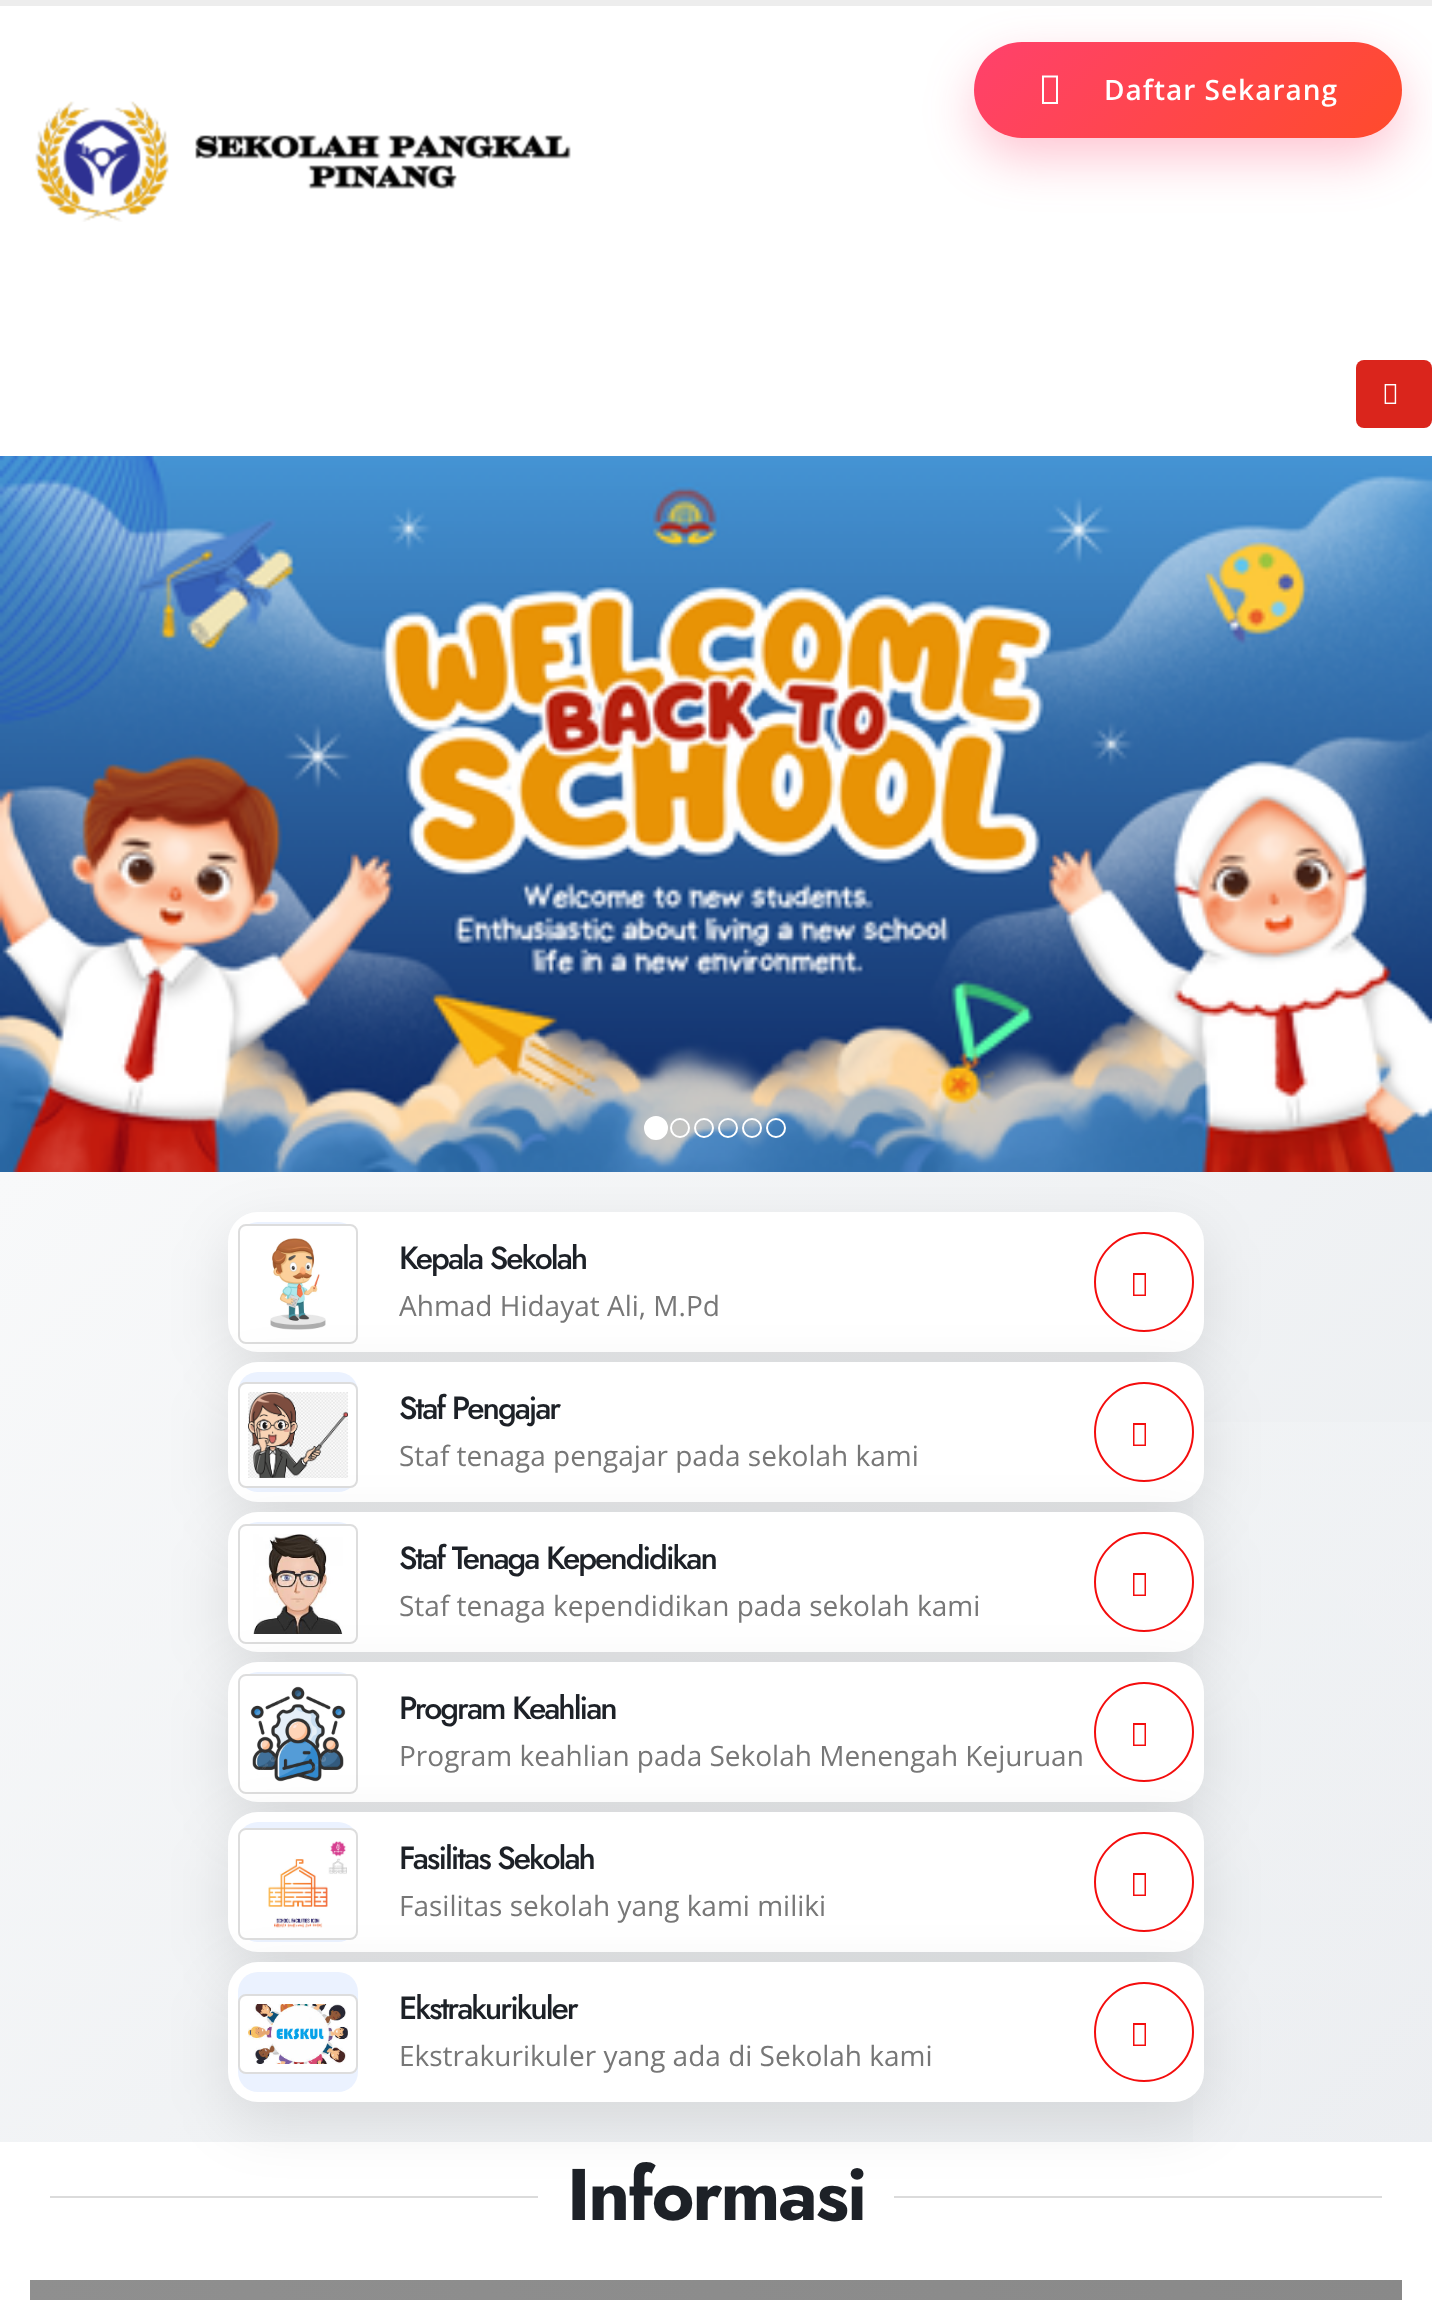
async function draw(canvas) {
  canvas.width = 1432
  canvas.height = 2300
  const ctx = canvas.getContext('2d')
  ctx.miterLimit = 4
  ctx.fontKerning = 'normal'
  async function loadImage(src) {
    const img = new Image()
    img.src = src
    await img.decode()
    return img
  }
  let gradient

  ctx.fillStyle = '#fff'
  ctx.fillRect(0, 0, 1432, 2300)
  ctx.fillStyle = '#ededed'
  ctx.fillRect(0, 0, 1432, 6)
  ctx.fillStyle = '#ff416c4d'
  ctx.filter = 'blur(25px)'
  ctx.beginPath()
  ctx.roundRect(974, 62, 428, 96, 48)
  ctx.fill()
  ctx.filter = 'none'
  gradient = ctx.createLinearGradient(1057, -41, 1319, 221)
  gradient.addColorStop(0, '#ff416c')
  gradient.addColorStop(1, '#ff4b2b')
  ctx.fillStyle = gradient
  ctx.beginPath()
  ctx.roundRect(974, 42, 428, 96, 48)
  ctx.fill()
  ctx.fillStyle = '#fff'
  ctx.beginPath()
  ctx.moveTo(1042, 104)
  ctx.lineTo(1042, 75.5)
  ctx.lineTo(1058, 75.5)
  ctx.lineTo(1058, 104)
  ctx.closePath()
  ctx.moveTo(1044, 102)
  ctx.lineTo(1056, 102)
  ctx.lineTo(1056, 77.5)
  ctx.lineTo(1044, 77.5)
  ctx.closePath()
  ctx.fill()
  ctx.letterSpacing = '1px'
  ctx.font = '600 28px Open Sans'
  ctx.fillText('Daftar Sekarang', 1104, 100)
  ctx.drawImage(await loadImage('image0.png'), 35, 101, 536, 121)
  ctx.fillStyle = '#da251c'
  ctx.beginPath()
  ctx.roundRect(1356, 360, 76, 68, 8)
  ctx.fill()
  ctx.drawImage(await loadImage('image1.png'), 1384, 384, 13, 20)
  ctx.drawImage(await loadImage('image2.png'), 0, 456, 1432, 716)
  ctx.fillStyle = '#fff'
  ctx.beginPath()
  ctx.arc(656, 1128, 11, 0, 2 * Math.PI)
  ctx.fill()
  ctx.strokeStyle = '#fff'
  ctx.lineWidth = 2
  ctx.stroke()
  ctx.beginPath()
  ctx.arc(680, 1128, 9, 0, 2 * Math.PI)
  ctx.stroke()
  ctx.beginPath()
  ctx.arc(704, 1128, 9, 0, 2 * Math.PI)
  ctx.stroke()
  ctx.beginPath()
  ctx.arc(728, 1128, 9, 0, 2 * Math.PI)
  ctx.stroke()
  ctx.beginPath()
  ctx.arc(752, 1128, 9, 0, 2 * Math.PI)
  ctx.stroke()
  ctx.beginPath()
  ctx.arc(776, 1128, 9, 0, 2 * Math.PI)
  ctx.stroke()
  gradient = ctx.createLinearGradient(115, 1057, 1317, 2258)
  gradient.addColorStop(0, '#f8f9fa')
  gradient.addColorStop(1, '#e9ecef')
  ctx.fillStyle = gradient
  ctx.fillRect(0, 1172, 1432, 970)
  gradient = ctx.createLinearGradient(116, 2258, 1317, 1057)
  gradient.addColorStop(0, '#ffffff1a')
  gradient.addColorStop(1, '#ffffff26')
  ctx.fillStyle = gradient
  ctx.fillRect(1193, 1422, 239, 720)
  ctx.fillStyle = '#0000001a'
  ctx.filter = 'blur(30px)'
  ctx.beginPath()
  ctx.roundRect(228, 1232, 976, 140, 30)
  ctx.fill()
  ctx.filter = 'none'
  ctx.fillStyle = '#fff'
  ctx.beginPath()
  ctx.roundRect(228, 1212, 976, 140, 30)
  ctx.fill()
  ctx.fillStyle = '#ebf2ff'
  ctx.beginPath()
  ctx.roundRect(238, 1222, 120, 120, 20)
  ctx.fill()
  ctx.fillStyle = '#fff'
  ctx.beginPath()
  ctx.roundRect(239, 1225, 118, 118, 7)
  ctx.fill()
  ctx.strokeStyle = '#ddd'
  ctx.stroke()
  ctx.drawImage(await loadImage('image3.png'), 270, 1238, 56, 92)
  ctx.letterSpacing = '-2px'
  ctx.font = '500 32px Jost'
  ctx.fillStyle = '#1d2127'
  ctx.fillText('Kepala Sekolah', 399, 1269)
  ctx.letterSpacing = '0px'
  ctx.font = '28px Open Sans'
  ctx.fillStyle = '#777'
  ctx.fillText('Ahmad Hidayat Ali, M.Pd', 399, 1316)
  ctx.beginPath()
  ctx.arc(1144, 1282, 49, 0, 2 * Math.PI)
  ctx.strokeStyle = '#f40d0d'
  ctx.stroke()
  ctx.fillStyle = '#f40d0d'
  ctx.beginPath()
  ctx.moveTo(1133, 1296)
  ctx.lineTo(1133, 1273)
  ctx.lineTo(1146, 1273)
  ctx.lineTo(1146, 1296)
  ctx.closePath()
  ctx.moveTo(1134.5, 1294.5)
  ctx.lineTo(1144.5, 1294.5)
  ctx.lineTo(1144.5, 1275)
  ctx.lineTo(1134.5, 1275)
  ctx.closePath()
  ctx.fill()
  ctx.fillStyle = '#0000001a'
  ctx.filter = 'blur(30px)'
  ctx.beginPath()
  ctx.roundRect(228, 1382, 976, 140, 30)
  ctx.fill()
  ctx.filter = 'none'
  ctx.fillStyle = '#fff'
  ctx.beginPath()
  ctx.roundRect(228, 1362, 976, 140, 30)
  ctx.fill()
  ctx.fillStyle = '#ebf2ff'
  ctx.beginPath()
  ctx.roundRect(238, 1372, 120, 120, 20)
  ctx.fill()
  ctx.fillStyle = '#fff'
  ctx.beginPath()
  ctx.roundRect(239, 1383, 118, 104, 7)
  ctx.fill()
  ctx.strokeStyle = '#ddd'
  ctx.stroke()
  ctx.drawImage(await loadImage('image4.png'), 248, 1392, 100, 86)
  ctx.letterSpacing = '-2px'
  ctx.font = '500 32px Jost'
  ctx.fillStyle = '#1d2127'
  ctx.fillText('Staf Pengajar', 399, 1419)
  ctx.letterSpacing = '0px'
  ctx.font = '28px Open Sans'
  ctx.fillStyle = '#777'
  ctx.fillText('Staf tenaga pengajar pada sekolah kami', 399, 1466)
  ctx.beginPath()
  ctx.arc(1144, 1432, 49, 0, 2 * Math.PI)
  ctx.strokeStyle = '#f40d0d'
  ctx.stroke()
  ctx.fillStyle = '#f40d0d'
  ctx.beginPath()
  ctx.moveTo(1133, 1446)
  ctx.lineTo(1133, 1423)
  ctx.lineTo(1146, 1423)
  ctx.lineTo(1146, 1446)
  ctx.closePath()
  ctx.moveTo(1134.5, 1444.5)
  ctx.lineTo(1144.5, 1444.5)
  ctx.lineTo(1144.5, 1425)
  ctx.lineTo(1134.5, 1425)
  ctx.closePath()
  ctx.fill()
  ctx.fillStyle = '#0000001a'
  ctx.filter = 'blur(30px)'
  ctx.beginPath()
  ctx.roundRect(228, 1532, 976, 140, 30)
  ctx.fill()
  ctx.filter = 'none'
  ctx.fillStyle = '#fff'
  ctx.beginPath()
  ctx.roundRect(228, 1512, 976, 140, 30)
  ctx.fill()
  ctx.fillStyle = '#ebf2ff'
  ctx.beginPath()
  ctx.roundRect(238, 1522, 120, 120, 20)
  ctx.fill()
  ctx.fillStyle = '#fff'
  ctx.beginPath()
  ctx.roundRect(239, 1525, 118, 118, 7)
  ctx.fill()
  ctx.strokeStyle = '#ddd'
  ctx.stroke()
  ctx.drawImage(await loadImage('image5.png'), 253, 1534, 90, 100)
  ctx.letterSpacing = '-2px'
  ctx.font = '500 32px Jost'
  ctx.fillStyle = '#1d2127'
  ctx.fillText('Staf Tenaga Kependidikan', 399, 1569)
  ctx.letterSpacing = '0px'
  ctx.font = '28px Open Sans'
  ctx.fillStyle = '#777'
  ctx.fillText('Staf tenaga kependidikan pada sekolah kami', 399, 1616)
  ctx.beginPath()
  ctx.arc(1144, 1582, 49, 0, 2 * Math.PI)
  ctx.strokeStyle = '#f40d0d'
  ctx.stroke()
  ctx.fillStyle = '#f40d0d'
  ctx.beginPath()
  ctx.moveTo(1133, 1596)
  ctx.lineTo(1133, 1573)
  ctx.lineTo(1146, 1573)
  ctx.lineTo(1146, 1596)
  ctx.closePath()
  ctx.moveTo(1134.5, 1594.5)
  ctx.lineTo(1144.5, 1594.5)
  ctx.lineTo(1144.5, 1575)
  ctx.lineTo(1134.5, 1575)
  ctx.closePath()
  ctx.fill()
  ctx.fillStyle = '#0000001a'
  ctx.filter = 'blur(30px)'
  ctx.beginPath()
  ctx.roundRect(228, 1682, 976, 140, 30)
  ctx.fill()
  ctx.filter = 'none'
  ctx.fillStyle = '#fff'
  ctx.beginPath()
  ctx.roundRect(228, 1662, 976, 140, 30)
  ctx.fill()
  ctx.fillStyle = '#ebf2ff'
  ctx.beginPath()
  ctx.roundRect(238, 1672, 120, 120, 20)
  ctx.fill()
  ctx.fillStyle = '#fff'
  ctx.beginPath()
  ctx.roundRect(239, 1675, 118, 118, 7)
  ctx.fill()
  ctx.strokeStyle = '#ddd'
  ctx.stroke()
  ctx.drawImage(await loadImage('image6.png'), 250, 1686, 96, 96)
  ctx.letterSpacing = '-2px'
  ctx.font = '500 32px Jost'
  ctx.fillStyle = '#1d2127'
  ctx.fillText('Program Keahlian', 399, 1719)
  ctx.letterSpacing = '0px'
  ctx.font = '28px Open Sans'
  ctx.fillStyle = '#777'
  ctx.fillText('Program keahlian pada Sekolah Menengah Kejuruan', 399, 1766)
  ctx.beginPath()
  ctx.arc(1144, 1732, 49, 0, 2 * Math.PI)
  ctx.strokeStyle = '#f40d0d'
  ctx.stroke()
  ctx.fillStyle = '#f40d0d'
  ctx.beginPath()
  ctx.moveTo(1133, 1746)
  ctx.lineTo(1133, 1723)
  ctx.lineTo(1146, 1723)
  ctx.lineTo(1146, 1746)
  ctx.closePath()
  ctx.moveTo(1134.5, 1744.5)
  ctx.lineTo(1144.5, 1744.5)
  ctx.lineTo(1144.5, 1725)
  ctx.lineTo(1134.5, 1725)
  ctx.closePath()
  ctx.fill()
  ctx.fillStyle = '#0000001a'
  ctx.filter = 'blur(30px)'
  ctx.beginPath()
  ctx.roundRect(228, 1832, 976, 140, 30)
  ctx.fill()
  ctx.filter = 'none'
  ctx.fillStyle = '#fff'
  ctx.beginPath()
  ctx.roundRect(228, 1812, 976, 140, 30)
  ctx.fill()
  ctx.fillStyle = '#ebf2ff'
  ctx.beginPath()
  ctx.roundRect(238, 1822, 120, 120, 20)
  ctx.fill()
  ctx.fillStyle = '#fff'
  ctx.beginPath()
  ctx.roundRect(239, 1829, 118, 110, 7)
  ctx.fill()
  ctx.strokeStyle = '#ddd'
  ctx.stroke()
  ctx.drawImage(await loadImage('image7.png'), 268, 1841, 79, 87)
  ctx.letterSpacing = '-2px'
  ctx.font = '500 32px Jost'
  ctx.fillStyle = '#1d2127'
  ctx.fillText('Fasilitas Sekolah', 399, 1869)
  ctx.letterSpacing = '0px'
  ctx.font = '28px Open Sans'
  ctx.fillStyle = '#777'
  ctx.fillText('Fasilitas sekolah yang kami miliki', 399, 1916)
  ctx.beginPath()
  ctx.arc(1144, 1882, 49, 0, 2 * Math.PI)
  ctx.strokeStyle = '#f40d0d'
  ctx.stroke()
  ctx.fillStyle = '#f40d0d'
  ctx.beginPath()
  ctx.moveTo(1133, 1896)
  ctx.lineTo(1133, 1873)
  ctx.lineTo(1146, 1873)
  ctx.lineTo(1146, 1896)
  ctx.closePath()
  ctx.moveTo(1134.5, 1894.5)
  ctx.lineTo(1144.5, 1894.5)
  ctx.lineTo(1144.5, 1875)
  ctx.lineTo(1134.5, 1875)
  ctx.closePath()
  ctx.fill()
  ctx.fillStyle = '#dbdbdb'
  ctx.fillRect(50, 2196, 1332, 2)
  ctx.fillStyle = '#fff'
  ctx.fillRect(538, 2196, 356, 2)
  ctx.fillStyle = '#0000001a'
  ctx.filter = 'blur(30px)'
  ctx.beginPath()
  ctx.roundRect(228, 1982, 976, 140, 30)
  ctx.fill()
  ctx.filter = 'none'
  ctx.fillStyle = '#fff'
  ctx.beginPath()
  ctx.roundRect(228, 1962, 976, 140, 30)
  ctx.fill()
  ctx.fillStyle = '#ebf2ff'
  ctx.beginPath()
  ctx.roundRect(238, 1972, 120, 120, 20)
  ctx.fill()
  ctx.fillStyle = '#fff'
  ctx.beginPath()
  ctx.roundRect(239, 1995, 118, 78, 7)
  ctx.fill()
  ctx.strokeStyle = '#ddd'
  ctx.stroke()
  ctx.drawImage(await loadImage('image8.png'), 248, 2004, 100, 60)
  ctx.letterSpacing = '-2px'
  ctx.font = '500 32px Jost'
  ctx.fillStyle = '#1d2127'
  ctx.fillText('Ekstrakurikuler', 399, 2019)
  ctx.letterSpacing = '0px'
  ctx.font = '28px Open Sans'
  ctx.fillStyle = '#777'
  ctx.fillText('Ekstrakurikuler yang ada di Sekolah kami', 399, 2066)
  ctx.beginPath()
  ctx.arc(1144, 2032, 49, 0, 2 * Math.PI)
  ctx.strokeStyle = '#f40d0d'
  ctx.stroke()
  ctx.fillStyle = '#f40d0d'
  ctx.beginPath()
  ctx.moveTo(1133, 2046)
  ctx.lineTo(1133, 2023)
  ctx.lineTo(1146, 2023)
  ctx.lineTo(1146, 2046)
  ctx.closePath()
  ctx.moveTo(1134.5, 2044.5)
  ctx.lineTo(1144.5, 2044.5)
  ctx.lineTo(1144.5, 2025)
  ctx.lineTo(1134.5, 2025)
  ctx.closePath()
  ctx.fill()
  ctx.letterSpacing = '-2px'
  ctx.font = 'bold 73px Jost'
  ctx.fillStyle = '#1d2127'
  ctx.fillText('Informasi', 567, 2220)
  gradient = ctx.createLinearGradient(-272, 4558, 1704, 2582)
  gradient.addColorStop(0, '#9a9a9a')
  gradient.addColorStop(1, '#898989')
  ctx.fillStyle = gradient
  ctx.fillRect(30, 2280, 1372, 20)
}

draw(document.querySelector('canvas'))
